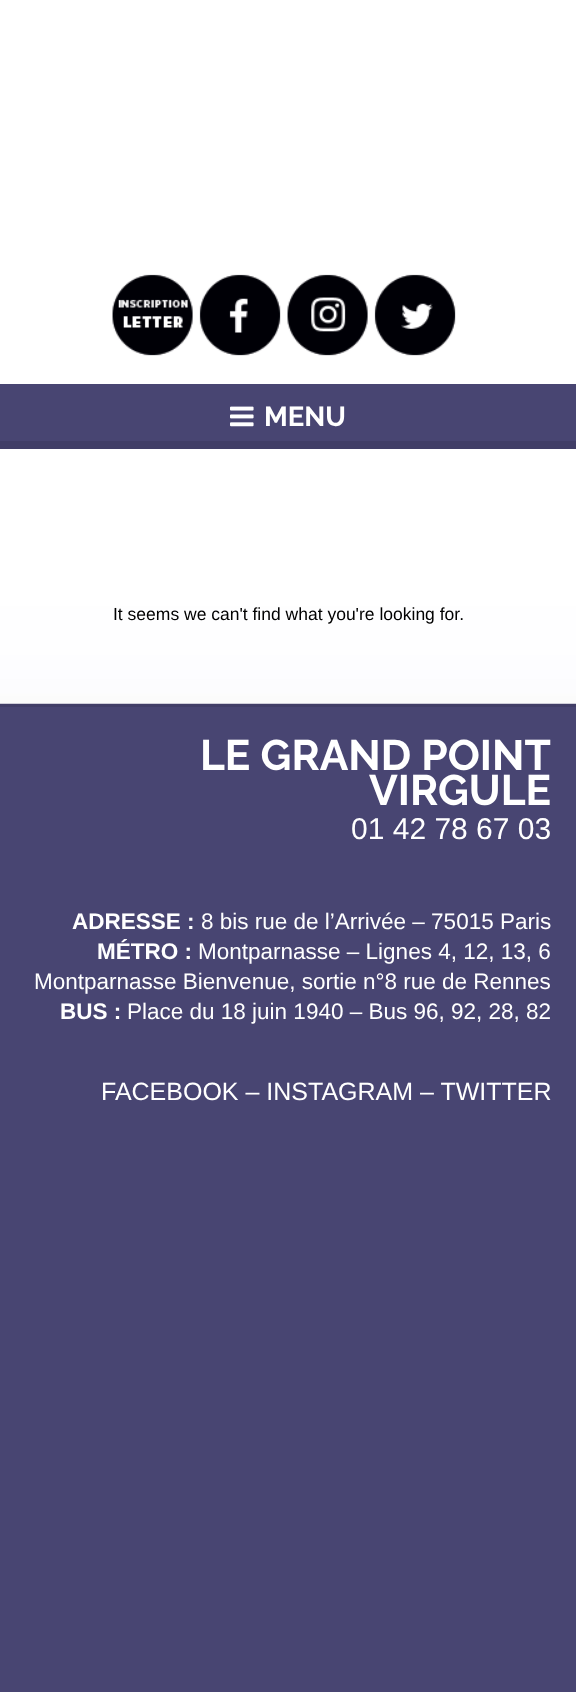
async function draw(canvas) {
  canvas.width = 576
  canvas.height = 1692
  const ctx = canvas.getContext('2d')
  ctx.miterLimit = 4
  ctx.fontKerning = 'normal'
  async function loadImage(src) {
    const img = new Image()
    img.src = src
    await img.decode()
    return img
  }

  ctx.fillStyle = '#484572'
  ctx.fillRect(0, 0, 576, 1692)
  ctx.fillStyle = '#fff'
  ctx.fillRect(0, 0, 576, 384)
  ctx.drawImage(await loadImage('image0.png'), 112, 274, 81, 82)
  ctx.drawImage(await loadImage('image1.png'), 199, 274, 82, 82)
  ctx.drawImage(await loadImage('image2.png'), 287, 274, 81, 82)
  ctx.drawImage(await loadImage('image3.png'), 374, 274, 82, 82)
  ctx.fillStyle = '#413e67'
  ctx.fillRect(0, 441, 576, 8)
  ctx.drawImage(await loadImage('image4.png'), 230, 406, 24, 21)
  ctx.font = 'bold 27.5px Raleway'
  ctx.fillStyle = '#fff'
  ctx.fillText('MENU', 264, 426)
  ctx.drawImage(await loadImage('image5.png'), 0, 449, 576, 255)
  ctx.font = '17.5px Liberation Sans'
  ctx.fillStyle = '#000'
  ctx.fillText('It seems we can\'t find what you\'re looking for.', 113, 620)
  ctx.fillStyle = '#413e67'
  ctx.fillRect(0, 704, 576, 3)
  ctx.font = 'bold 42.5px Raleway'
  ctx.fillStyle = '#fff'
  ctx.fillText('LE GRAND POINT', 200, 770)
  ctx.fillText('VIRGULE', 369, 805)
  ctx.font = '30px Liberation Sans'
  ctx.fillText('01 42 78 67 03', 351, 839)
  ctx.font = 'bold 22.5px Liberation Sans'
  ctx.fillText('ADRESSE :', 72, 929)
  ctx.font = '22.5px Liberation Sans'
  ctx.fillText('8 bis rue de l’Arrivée – 75015 Paris', 201, 929)
  ctx.font = 'bold 22.5px Liberation Sans'
  ctx.fillText('MÉTRO :', 97, 959)
  ctx.font = '22.5px Liberation Sans'
  ctx.fillText('Montparnasse – Lignes 4, 12, 13, 6', 198, 959)
  ctx.fillText('Montparnasse Bienvenue, sortie n°8 rue de Rennes', 34, 989)
  ctx.font = 'bold 22.5px Liberation Sans'
  ctx.fillText('BUS :', 60, 1019)
  ctx.font = '22.5px Liberation Sans'
  ctx.fillText('Place du 18 juin 1940 – Bus 96, 92, 28, 82', 127, 1019)
  ctx.font = '25px Liberation Sans'
  ctx.fillText('FACEBOOK – INSTAGRAM – TWITTER', 101, 1100)
}

draw(document.querySelector('canvas'))
